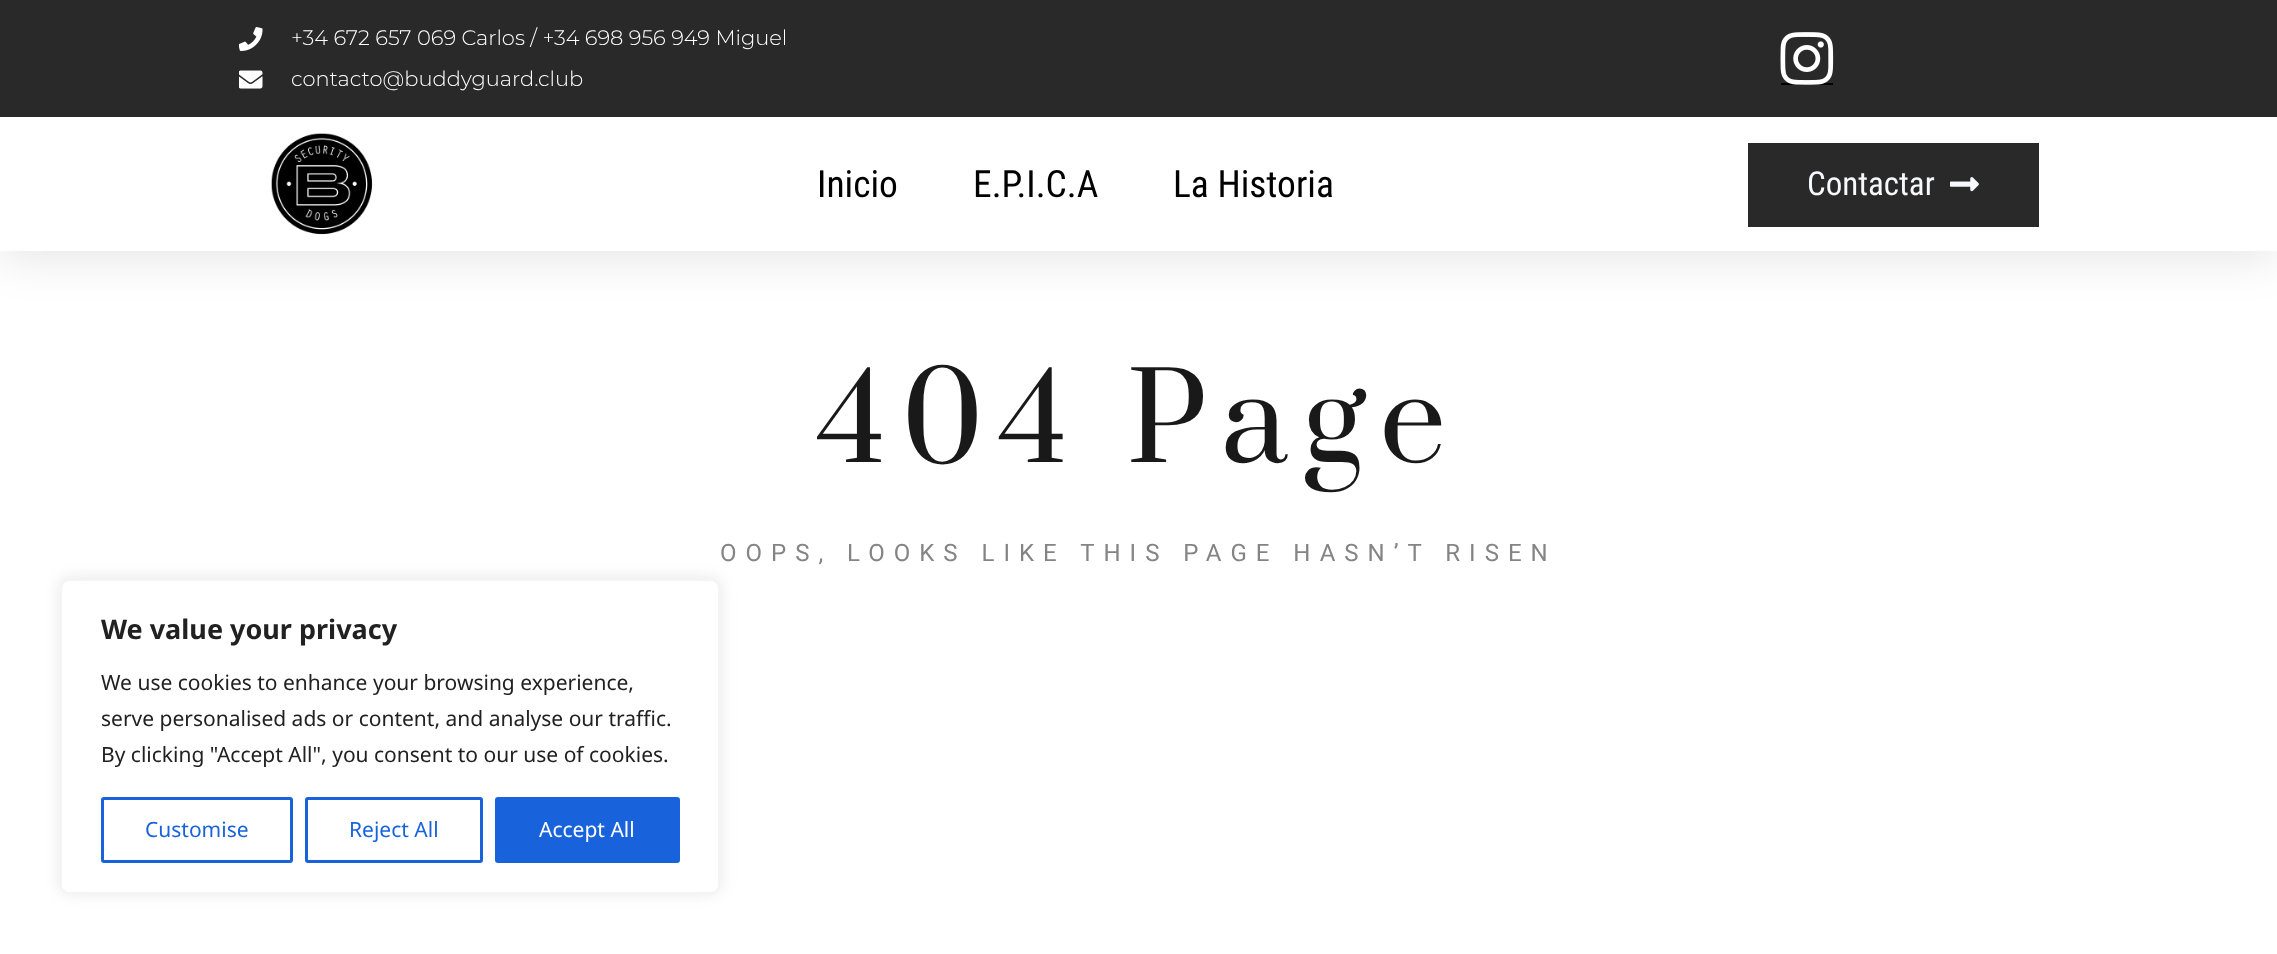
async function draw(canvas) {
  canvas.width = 2277
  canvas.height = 954
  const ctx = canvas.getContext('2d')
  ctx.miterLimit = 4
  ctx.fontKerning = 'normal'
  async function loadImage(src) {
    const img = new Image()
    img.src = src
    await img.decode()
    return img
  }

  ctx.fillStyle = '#fff'
  ctx.fillRect(0, 0, 2277, 954)
  ctx.fillStyle = '#0000001a'
  ctx.filter = 'blur(22.5px)'
  ctx.beginPath()
  ctx.rect(0, 8, 2277, 250)
  ctx.fill()
  ctx.filter = 'none'
  ctx.fillStyle = '#29292a'
  ctx.fillRect(0, 0, 2277, 117)
  ctx.drawImage(await loadImage('image0.png'), 239, 27, 24, 24)
  ctx.font = '300 21px Montserrat'
  ctx.fillStyle = '#fff'
  ctx.fillText('+34 672 657 069 Carlos / +34 698 956 949 Miguel', 291, 45)
  ctx.drawImage(await loadImage('image1.png'), 239, 70, 24, 19)
  ctx.fillText('contacto@buddyguard.club', 291, 86)
  ctx.fillStyle = '#000'
  ctx.fillRect(1781, 83, 52, 2)
  ctx.drawImage(await loadImage('image2.png'), 1780, 32, 54, 53)
  ctx.fillStyle = '#fff'
  ctx.fillRect(0, 117, 2277, 134)
  ctx.drawImage(await loadImage('image3.png'), 271, 133, 102, 102)
  ctx.font = '37.5px Roboto Condensed'
  ctx.fillStyle = '#000'
  ctx.fillText('Inicio', 817, 197)
  ctx.fillText('E.P.I.C.A', 973, 197)
  ctx.fillText('La Historia', 1173, 197)
  ctx.fillStyle = '#29292a'
  ctx.fillRect(1748, 143, 291, 84)
  ctx.font = '33px Roboto Condensed'
  ctx.fillStyle = '#f7f8fa'
  ctx.fillText('Contactar', 1807, 195)
  ctx.drawImage(await loadImage('image4.png'), 1950, 177, 29, 15)
  ctx.letterSpacing = '15px'
  ctx.font = '118.5px Prata'
  ctx.fillStyle = '#191919'
  ctx.fillText('404 Page', 817, 462)
  ctx.letterSpacing = '9px'
  ctx.font = '24px Roboto'
  ctx.fillStyle = '#848484'
  ctx.fillText('OOPS, LOOKS LIKE THIS PAGE HASN’T RISEN', 720, 561)
  ctx.fillStyle = '#acabab4d'
  ctx.filter = 'blur(7.5px)'
  ctx.beginPath()
  ctx.roundRect(60, 578, 660, 315, 9)
  ctx.fill()
  ctx.filter = 'none'
  ctx.fillStyle = '#fff'
  ctx.beginPath()
  ctx.roundRect(61, 580, 658, 313, 8)
  ctx.fill()
  ctx.strokeStyle = '#f4f4f4'
  ctx.lineWidth = 2
  ctx.stroke()
  ctx.letterSpacing = '0px'
  ctx.font = 'bold 27px Noto Sans'
  ctx.fillStyle = '#212121'
  ctx.fillText('We value your privacy', 101, 639)
  ctx.font = '21px Noto Sans'
  ctx.fillText('We use cookies to enhance your browsing experience,', 101, 690)
  ctx.fillText('serve personalised ads or content, and analyse our traffic.', 101, 726)
  ctx.fillText('By clicking "Accept All", you consent to our use of cookies.', 101, 762)
  ctx.beginPath()
  ctx.roundRect(102.5, 798.5, 189, 63, 1.5)
  ctx.strokeStyle = '#1863dc'
  ctx.lineWidth = 3
  ctx.stroke()
  ctx.fillStyle = '#1863dc'
  ctx.fillText('Customise', 145, 837)
  ctx.beginPath()
  ctx.roundRect(306.5, 798.5, 175, 63, 1.5)
  ctx.stroke()
  ctx.fillText('Reject All', 349, 837)
  ctx.beginPath()
  ctx.roundRect(496.5, 798.5, 182, 63, 1.5)
  ctx.fill()
  ctx.stroke()
  ctx.fillStyle = '#fff'
  ctx.fillText('Accept All', 539, 837)
}

draw(document.querySelector('canvas'))
